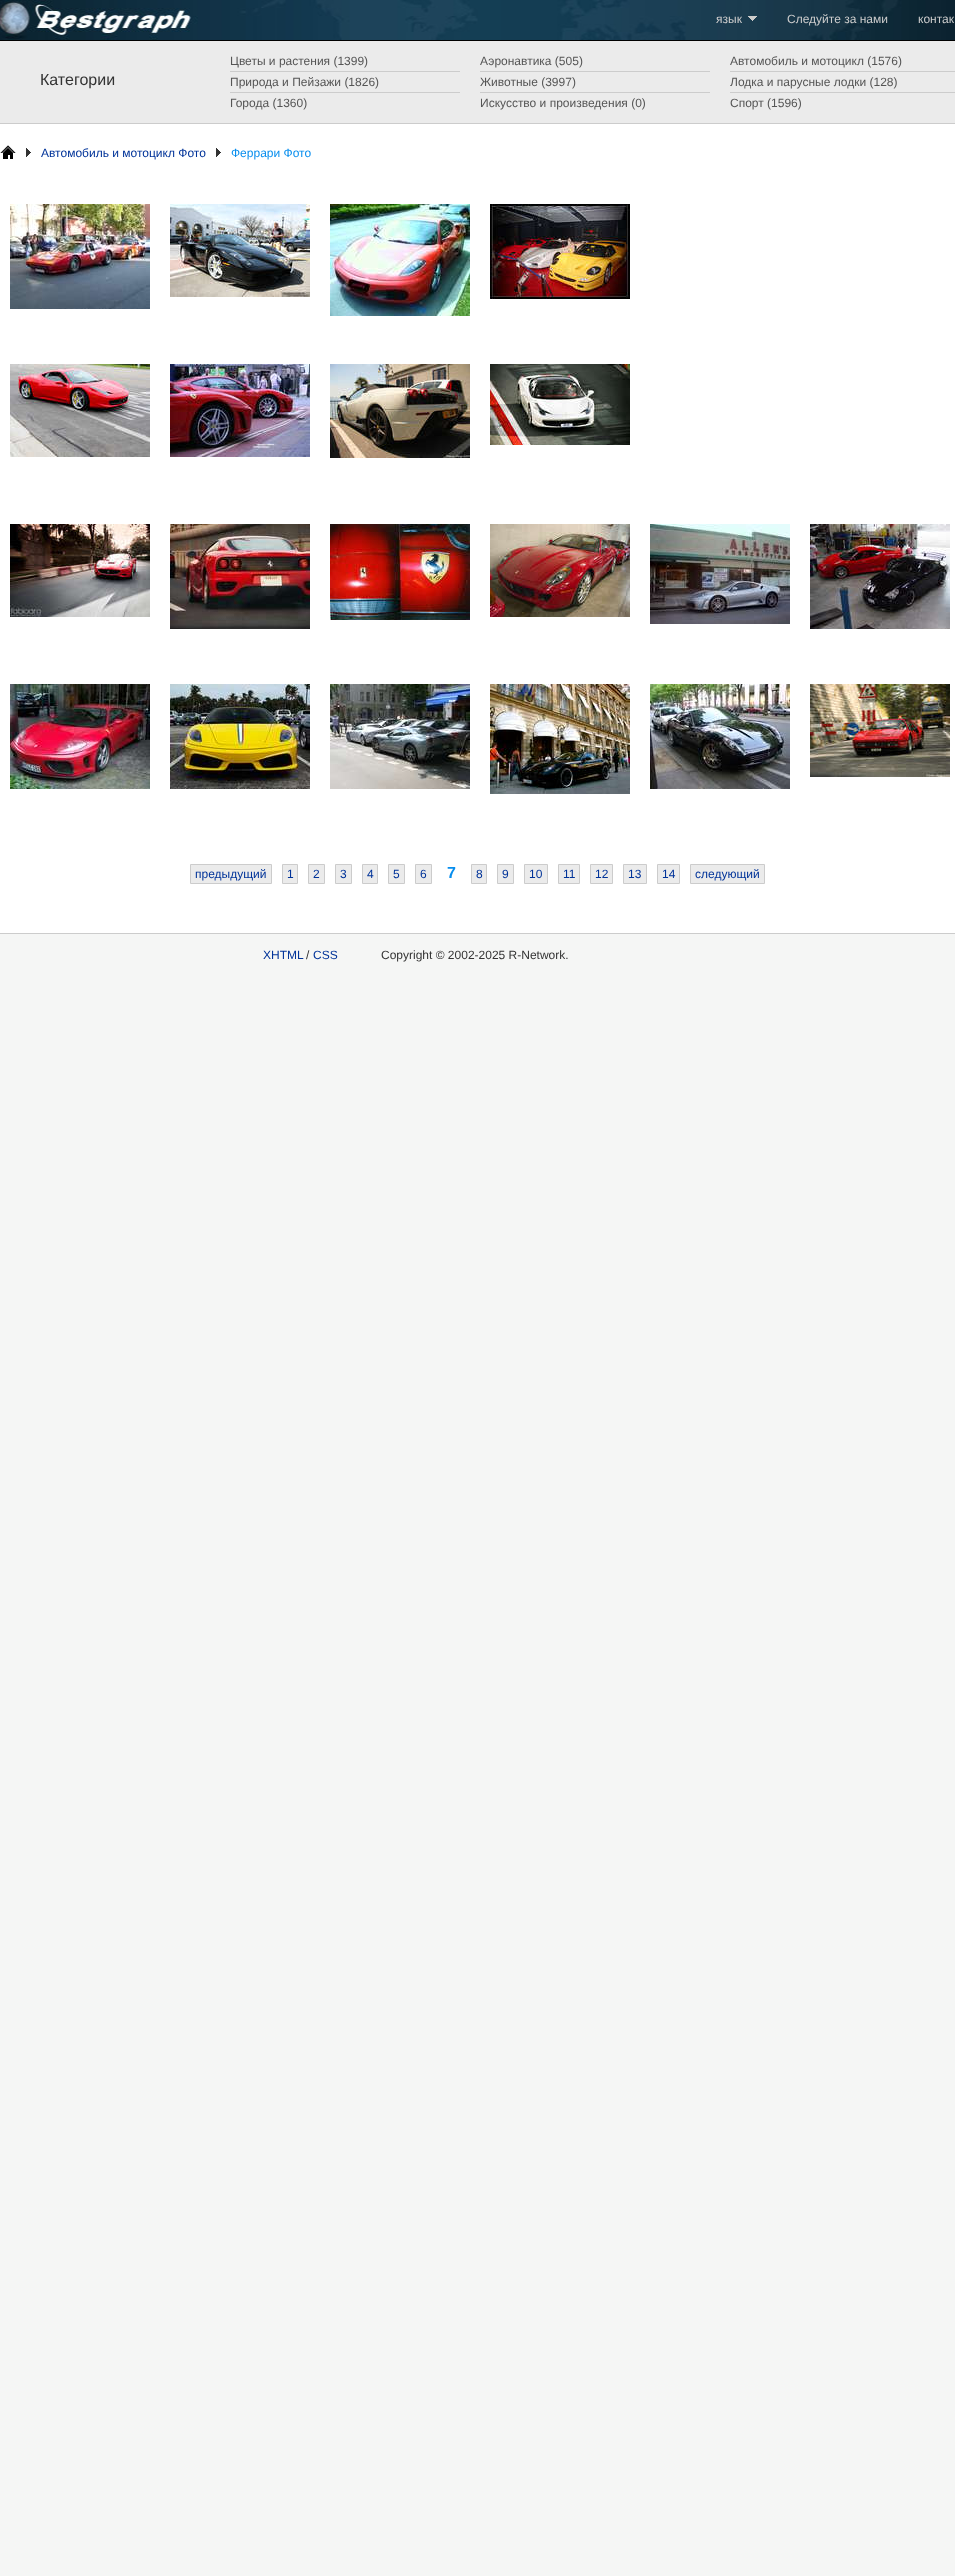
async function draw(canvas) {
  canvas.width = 955
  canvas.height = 2576
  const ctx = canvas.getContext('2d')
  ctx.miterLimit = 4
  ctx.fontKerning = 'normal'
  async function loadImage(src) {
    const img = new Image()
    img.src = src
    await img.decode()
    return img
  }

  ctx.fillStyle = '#f5f6f5'
  ctx.fillRect(0, 0, 955, 2576)
  ctx.fillStyle = '#000'
  ctx.fillRect(0, 40, 955, 1)
  ctx.drawImage(await loadImage('image0.png'), 0, 0, 955, 40)
  ctx.font = '12px Liberation Sans'
  ctx.fillStyle = '#ccc'
  ctx.fillText('язык', 716, 23)
  ctx.drawImage(await loadImage('image1.png'), 748, 16, 9, 5)
  ctx.fillText('Следуйте за нами', 787, 23)
  ctx.fillText('контак', 918, 23)
  ctx.fillStyle = '#ebebeb'
  ctx.fillRect(0, 41, 955, 82)
  ctx.fillStyle = '#ccc'
  ctx.fillRect(0, 123, 955, 1)
  ctx.font = '16px Liberation Sans'
  ctx.fillStyle = '#333'
  ctx.fillText('Категории', 40, 85)
  ctx.fillStyle = '#ccc'
  ctx.fillRect(230, 71, 230, 1)
  ctx.font = '12px Liberation Sans'
  ctx.fillStyle = '#555'
  ctx.fillText('Цветы и растения (1399)', 230, 65)
  ctx.fillStyle = '#ccc'
  ctx.fillRect(480, 71, 230, 1)
  ctx.fillStyle = '#555'
  ctx.fillText('Аэронавтика (505)', 480, 65)
  ctx.fillStyle = '#ccc'
  ctx.fillRect(730, 71, 225, 1)
  ctx.fillStyle = '#555'
  ctx.fillText('Автомобиль и мотоцикл (1576)', 730, 65)
  ctx.fillStyle = '#ccc'
  ctx.fillRect(230, 92, 230, 1)
  ctx.fillStyle = '#555'
  ctx.fillText('Природа и Пейзажи (1826)', 230, 86)
  ctx.fillStyle = '#ccc'
  ctx.fillRect(480, 92, 230, 1)
  ctx.fillStyle = '#555'
  ctx.fillText('Животные (3997)', 480, 86)
  ctx.fillStyle = '#ccc'
  ctx.fillRect(730, 92, 225, 1)
  ctx.fillStyle = '#555'
  ctx.fillText('Лодка и парусные лодки (128)', 730, 86)
  ctx.fillText('Города (1360)', 230, 107)
  ctx.fillText('Искусство и произведения (0)', 480, 107)
  ctx.fillText('Спорт (1596)', 730, 107)
  ctx.fillStyle = '#fff'
  ctx.fillRect(0, 124, 955, 809)
  ctx.drawImage(await loadImage('image2.png'), 0, 145, 16, 14)
  ctx.drawImage(await loadImage('image3.png'), 26, 148, 5, 9)
  ctx.fillStyle = '#039'
  ctx.fillText('Автомобиль и мотоцикл Фото', 41, 157)
  ctx.drawImage(await loadImage('image3.png'), 216, 148, 5, 9)
  ctx.fillStyle = '#088eee'
  ctx.fillText('Феррари Фото', 231, 157)
  ctx.drawImage(await loadImage('image4.png'), 10, 204, 140, 105)
  ctx.drawImage(await loadImage('image5.png'), 170, 204, 140, 93)
  ctx.drawImage(await loadImage('image6.png'), 330, 204, 140, 112)
  ctx.drawImage(await loadImage('image7.png'), 490, 204, 140, 95)
  ctx.drawImage(await loadImage('image8.png'), 10, 364, 140, 93)
  ctx.drawImage(await loadImage('image9.png'), 170, 364, 140, 93)
  ctx.drawImage(await loadImage('image10.png'), 330, 364, 140, 94)
  ctx.drawImage(await loadImage('image11.png'), 490, 364, 140, 81)
  ctx.drawImage(await loadImage('image12.png'), 10, 524, 140, 93)
  ctx.drawImage(await loadImage('image13.png'), 170, 524, 140, 105)
  ctx.drawImage(await loadImage('image14.png'), 330, 524, 140, 96)
  ctx.drawImage(await loadImage('image15.png'), 490, 524, 140, 93)
  ctx.drawImage(await loadImage('image16.png'), 650, 524, 140, 100)
  ctx.drawImage(await loadImage('image17.png'), 810, 524, 140, 105)
  ctx.drawImage(await loadImage('image18.png'), 10, 684, 140, 105)
  ctx.drawImage(await loadImage('image19.png'), 170, 684, 140, 105)
  ctx.drawImage(await loadImage('image20.png'), 330, 684, 140, 105)
  ctx.drawImage(await loadImage('image21.png'), 490, 684, 140, 110)
  ctx.drawImage(await loadImage('image22.png'), 650, 684, 140, 105)
  ctx.drawImage(await loadImage('image23.png'), 810, 684, 140, 93)
  ctx.fillStyle = '#ebebeb'
  ctx.beginPath()
  ctx.rect(190.5, 864.5, 81, 19)
  ctx.fill()
  ctx.strokeStyle = '#ccc'
  ctx.stroke()
  ctx.fillStyle = '#039'
  ctx.fillText('предыдущий', 195, 878)
  ctx.fillStyle = '#ebebeb'
  ctx.beginPath()
  ctx.rect(282.5, 864.5, 15, 19)
  ctx.fill()
  ctx.stroke()
  ctx.fillStyle = '#039'
  ctx.fillText('1', 287, 878)
  ctx.fillStyle = '#ebebeb'
  ctx.beginPath()
  ctx.rect(308.5, 864.5, 16, 19)
  ctx.fill()
  ctx.stroke()
  ctx.fillStyle = '#039'
  ctx.fillText('2', 313, 878)
  ctx.fillStyle = '#ebebeb'
  ctx.beginPath()
  ctx.rect(335.5, 864.5, 16, 19)
  ctx.fill()
  ctx.stroke()
  ctx.fillStyle = '#039'
  ctx.fillText('3', 340, 878)
  ctx.fillStyle = '#ebebeb'
  ctx.beginPath()
  ctx.rect(362.5, 864.5, 15, 19)
  ctx.fill()
  ctx.stroke()
  ctx.fillStyle = '#039'
  ctx.fillText('4', 367, 878)
  ctx.fillStyle = '#ebebeb'
  ctx.beginPath()
  ctx.rect(388.5, 864.5, 16, 19)
  ctx.fill()
  ctx.stroke()
  ctx.fillStyle = '#039'
  ctx.fillText('5', 393, 878)
  ctx.fillStyle = '#ebebeb'
  ctx.beginPath()
  ctx.rect(415.5, 864.5, 16, 19)
  ctx.fill()
  ctx.stroke()
  ctx.fillStyle = '#039'
  ctx.fillText('6', 420, 878)
  ctx.font = 'bold 16px Liberation Sans'
  ctx.fillStyle = '#088eee'
  ctx.fillText('7', 447, 878)
  ctx.fillStyle = '#ebebeb'
  ctx.beginPath()
  ctx.rect(471.5, 864.5, 15, 19)
  ctx.fill()
  ctx.stroke()
  ctx.font = '12px Liberation Sans'
  ctx.fillStyle = '#039'
  ctx.fillText('8', 476, 878)
  ctx.fillStyle = '#ebebeb'
  ctx.beginPath()
  ctx.rect(497.5, 864.5, 16, 19)
  ctx.fill()
  ctx.stroke()
  ctx.fillStyle = '#039'
  ctx.fillText('9', 502, 878)
  ctx.fillStyle = '#ebebeb'
  ctx.beginPath()
  ctx.rect(524.5, 864.5, 23, 19)
  ctx.fill()
  ctx.stroke()
  ctx.fillStyle = '#039'
  ctx.fillText('10', 529, 878)
  ctx.fillStyle = '#ebebeb'
  ctx.beginPath()
  ctx.rect(558.5, 864.5, 21, 19)
  ctx.fill()
  ctx.stroke()
  ctx.fillStyle = '#039'
  ctx.fillText('11', 563, 878)
  ctx.fillStyle = '#ebebeb'
  ctx.beginPath()
  ctx.rect(590.5, 864.5, 22, 19)
  ctx.fill()
  ctx.stroke()
  ctx.fillStyle = '#039'
  ctx.fillText('12', 595, 878)
  ctx.fillStyle = '#ebebeb'
  ctx.beginPath()
  ctx.rect(623.5, 864.5, 23, 19)
  ctx.fill()
  ctx.stroke()
  ctx.fillStyle = '#039'
  ctx.fillText('13', 628, 878)
  ctx.fillStyle = '#ebebeb'
  ctx.beginPath()
  ctx.rect(657.5, 864.5, 22, 19)
  ctx.fill()
  ctx.stroke()
  ctx.fillStyle = '#039'
  ctx.fillText('14', 662, 878)
  ctx.fillStyle = '#ebebeb'
  ctx.beginPath()
  ctx.rect(690.5, 864.5, 74, 19)
  ctx.fill()
  ctx.stroke()
  ctx.fillStyle = '#039'
  ctx.fillText('следующий', 695, 878)
  ctx.fillStyle = '#ccc'
  ctx.fillRect(0, 933, 955, 1)
  ctx.fillStyle = '#039'
  ctx.fillText('XHTML', 263, 959)
  ctx.fillStyle = '#333'
  ctx.fillText('/', 306, 959)
  ctx.fillStyle = '#039'
  ctx.fillText('CSS', 313, 959)
  ctx.fillStyle = '#333'
  ctx.fillText('Copyright © 2002-2025 R-Network.', 381, 959)
}

draw(document.querySelector('canvas'))
